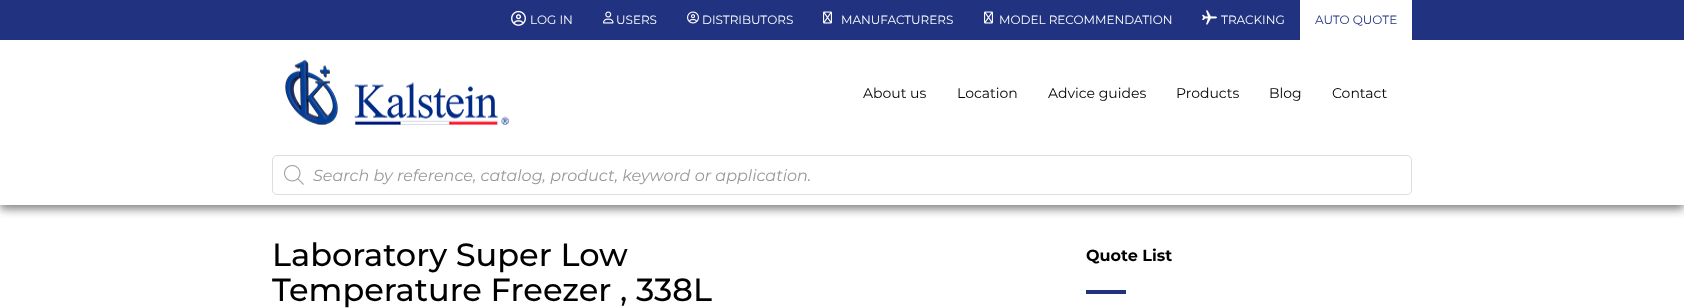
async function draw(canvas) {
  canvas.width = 1684
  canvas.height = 308
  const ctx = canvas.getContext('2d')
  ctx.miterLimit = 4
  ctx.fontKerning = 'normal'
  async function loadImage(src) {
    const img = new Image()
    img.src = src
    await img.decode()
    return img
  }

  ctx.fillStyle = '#fff'
  ctx.fillRect(0, 0, 1684, 308)
  ctx.save()
  ctx.beginPath()
  ctx.rect(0, 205, 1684, 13)
  ctx.clip()
  ctx.fillStyle = '#00000080'
  ctx.filter = 'blur(5px)'
  ctx.beginPath()
  ctx.rect(0, 4, 1684, 205)
  ctx.fill()
  ctx.filter = 'none'
  ctx.restore()
  ctx.fillStyle = '#213280'
  ctx.fillRect(0, 0, 1684, 40)
  ctx.drawImage(await loadImage('image0.png'), 511, 10, 15, 16)
  ctx.font = '12px Montserrat'
  ctx.fillStyle = '#fff'
  ctx.fillText('LOG IN', 530, 24)
  ctx.drawImage(await loadImage('image1.png'), 603, 11, 11, 13)
  ctx.fillText('USERS', 616, 24)
  ctx.drawImage(await loadImage('image2.png'), 687, 11, 12, 13)
  ctx.fillText('DISTRIBUTORS', 702, 24)
  ctx.drawImage(await loadImage('image3.png'), 823, 11, 9, 13)
  ctx.fillText('MANUFACTURERS', 841, 24)
  ctx.drawImage(await loadImage('image3.png'), 984, 11, 9, 13)
  ctx.fillText('MODEL RECOMMENDATION', 999, 24)
  ctx.drawImage(await loadImage('image4.png'), 1202, 10, 15, 15)
  ctx.fillText('TRACKING', 1221, 24)
  ctx.fillRect(1300, 0, 112, 40)
  ctx.fillStyle = '#213280'
  ctx.fillText('AUTO QUOTE', 1315, 24)
  ctx.drawImage(await loadImage('image5.png'), 285, 60, 224, 65)
  ctx.font = '14px Montserrat'
  ctx.fillStyle = '#000'
  ctx.fillText('About us', 863, 98)
  ctx.fillText('Location', 957, 98)
  ctx.fillText('Advice guides', 1048, 98)
  ctx.fillText('Products', 1176, 98)
  ctx.fillText('Blog', 1269, 98)
  ctx.fillText('Contact', 1332, 98)
  ctx.beginPath()
  ctx.roundRect(272.5, 155.5, 1139, 39, 4.5)
  ctx.strokeStyle = '#ddd'
  ctx.stroke()
  ctx.drawImage(await loadImage('image6.png'), 284, 165, 20, 20)
  ctx.font = 'italic 16px Montserrat'
  ctx.fillStyle = '#999'
  ctx.fillText('Search by reference, catalog, product, keyword or application.', 313, 181)
  ctx.font = '500 32px Montserrat'
  ctx.fillStyle = '#000'
  ctx.fillText('Laboratory Super Low', 272, 266)
  ctx.fillText('Temperature Freezer , 338L', 272, 301)
  ctx.font = 'bold 16px Montserrat'
  ctx.fillText('Quote List', 1086, 261)
  ctx.fillStyle = '#213280'
  ctx.fillRect(1086, 290, 40, 4)
}

draw(document.querySelector('canvas'))
